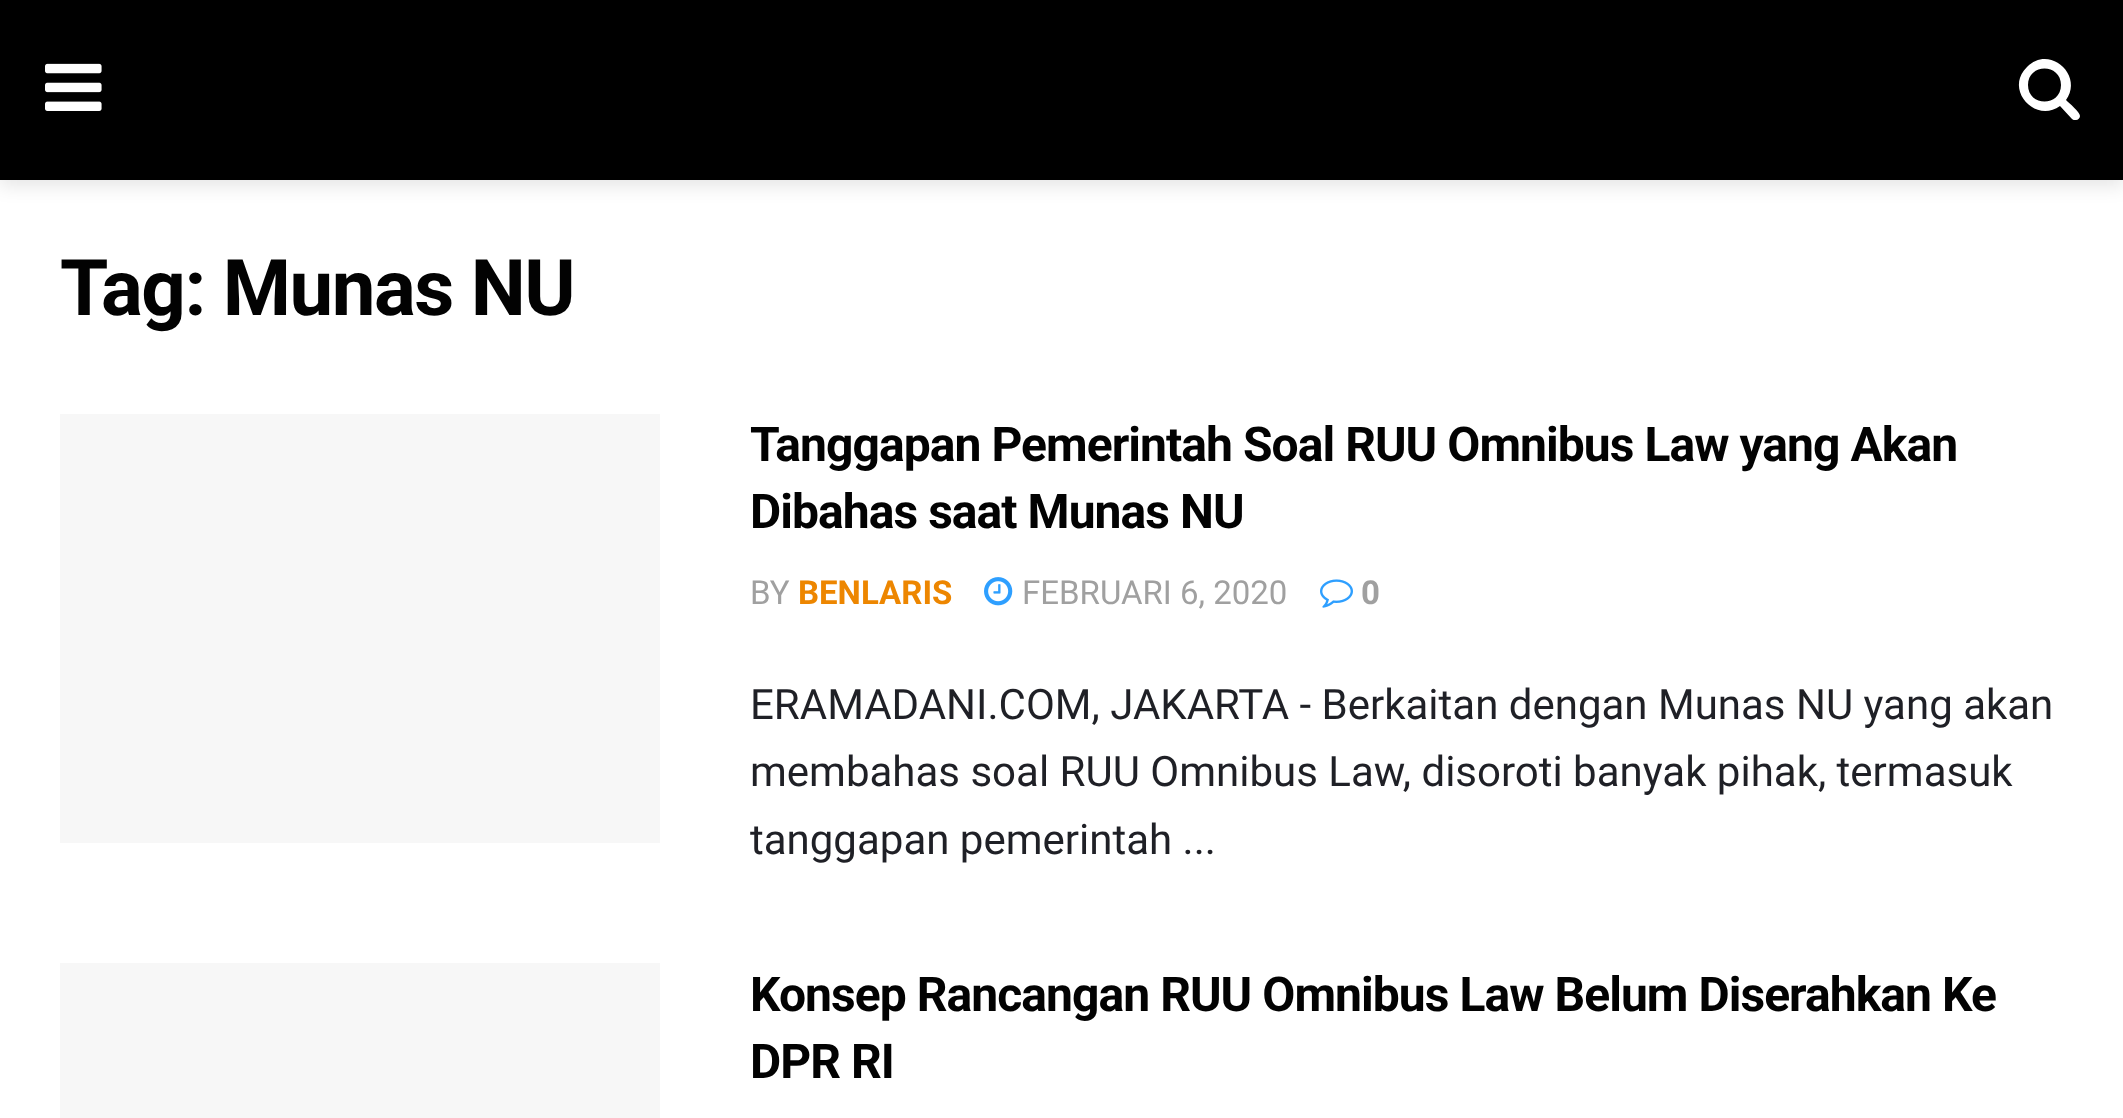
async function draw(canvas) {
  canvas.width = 2123
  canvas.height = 1118
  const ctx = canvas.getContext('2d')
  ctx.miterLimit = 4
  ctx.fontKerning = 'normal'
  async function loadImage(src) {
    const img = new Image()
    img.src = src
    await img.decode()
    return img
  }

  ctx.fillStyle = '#fff'
  ctx.fillRect(0, 0, 2123, 1118)
  ctx.fillStyle = '#0000001a'
  ctx.filter = 'blur(9px)'
  ctx.beginPath()
  ctx.rect(0, 6, 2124, 180)
  ctx.fill()
  ctx.filter = 'none'
  ctx.fillStyle = '#000'
  ctx.fillRect(0, 0, 2123, 180)
  ctx.drawImage(await loadImage('image0.png'), 45, 63, 57, 48)
  ctx.fillStyle = '#fff'
  ctx.beginPath()
  ctx.moveTo(2061, 85)
  ctx.bezierCurveTo(2061, 107, 2028, 107, 2028, 85)
  ctx.bezierCurveTo(2028, 63, 2061, 63, 2061, 85)
  ctx.closePath()
  ctx.moveTo(2080, 116)
  ctx.bezierCurveTo(2080, 112, 2069, 103, 2066, 100)
  ctx.bezierCurveTo(2084, 75, 2049, 44, 2027, 67)
  ctx.bezierCurveTo(2004, 89, 2035, 124, 2060, 106)
  ctx.lineTo(2072, 119)
  ctx.bezierCurveTo(2073, 120, 2074, 120, 2076, 120)
  ctx.bezierCurveTo(2078, 120, 2080, 118, 2080, 116)
  ctx.closePath()
  ctx.fill()
  ctx.letterSpacing = '-1.5px'
  ctx.font = 'bold 78px Roboto'
  ctx.fillStyle = '#020202'
  ctx.fillText('Tag: Munas NU', 60, 315)
  ctx.fillStyle = '#f7f7f7'
  ctx.fillRect(60, 414, 600, 429)
  ctx.letterSpacing = '-0.95px'
  ctx.font = 'bold 48px Roboto'
  ctx.fillStyle = '#020202'
  ctx.fillText('Tanggapan Pemerintah Soal RUU Omnibus Law yang Akan', 750, 461)
  ctx.fillText('Dibahas saat Munas NU', 750, 528)
  ctx.letterSpacing = '0px'
  ctx.font = '33px Roboto'
  ctx.fillStyle = '#a0a0a0'
  ctx.fillText('BY', 750, 604)
  ctx.font = 'bold 33px Roboto'
  ctx.fillStyle = '#ed8600'
  ctx.fillText('BENLARIS', 798, 604)
  ctx.drawImage(await loadImage('image1.png'), 984, 577, 29, 29)
  ctx.font = '33px Roboto'
  ctx.fillStyle = '#a0a0a0'
  ctx.fillText('FEBRUARI 6, 2020', 1022, 604)
  ctx.drawImage(await loadImage('image2.png'), 1320, 579, 33, 29)
  ctx.font = 'bold 33px Roboto'
  ctx.fillText('0', 1361, 604)
  ctx.font = '42px Roboto'
  ctx.fillStyle = '#1f2026'
  ctx.fillText('ERAMADANI.COM, JAKARTA - Berkaitan dengan Munas NU yang akan', 750, 719)
  ctx.fillText('membahas soal RUU Omnibus Law, disoroti banyak pihak, termasuk', 750, 786)
  ctx.fillText('tanggapan pemerintah ...', 750, 854)
  ctx.fillStyle = '#f7f7f7'
  ctx.fillRect(60, 963, 600, 155)
  ctx.letterSpacing = '-0.95px'
  ctx.font = 'bold 48px Roboto'
  ctx.fillStyle = '#020202'
  ctx.fillText('Konsep Rancangan RUU Omnibus Law Belum Diserahkan Ke', 750, 1011)
  ctx.fillText('DPR RI', 750, 1078)
}

draw(document.querySelector('canvas'))
